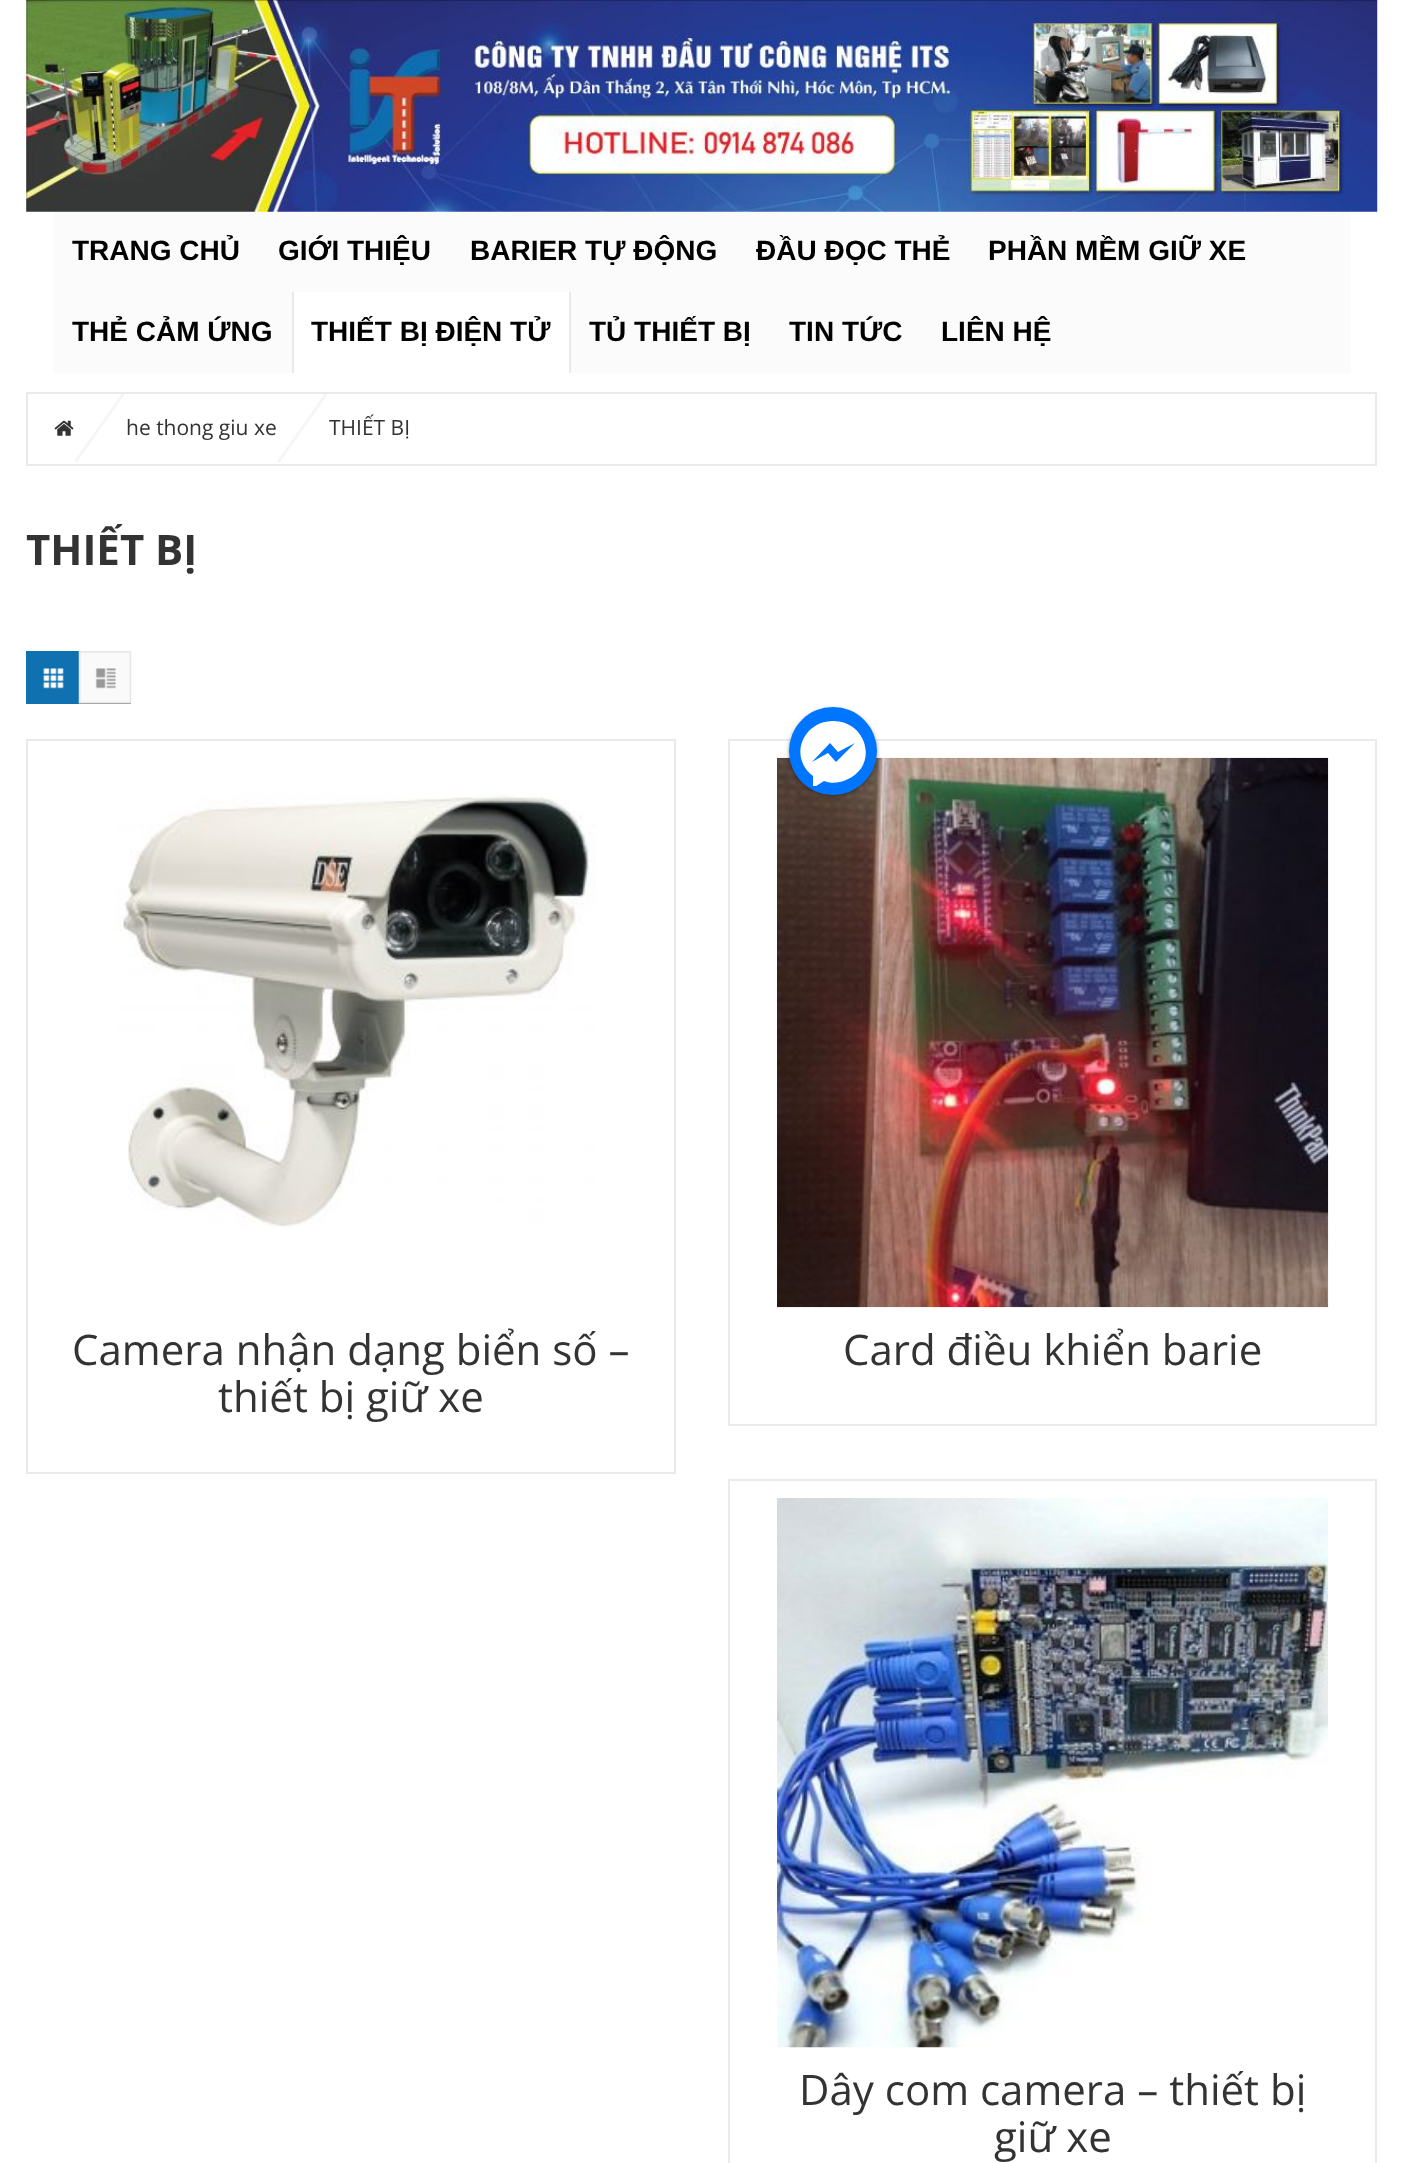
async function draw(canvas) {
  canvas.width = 1403
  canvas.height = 2163
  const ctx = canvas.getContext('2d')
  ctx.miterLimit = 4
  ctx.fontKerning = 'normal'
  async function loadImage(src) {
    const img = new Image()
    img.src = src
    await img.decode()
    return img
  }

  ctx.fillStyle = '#fff'
  ctx.fillRect(0, 0, 1403, 2163)
  ctx.drawImage(await loadImage('image0.png'), 26, 0, 1352, 212)
  ctx.fillStyle = '#fbfbfb'
  ctx.fillRect(53, 212, 1298, 161)
  ctx.font = 'bold 28px Liberation Sans'
  ctx.fillStyle = '#000'
  ctx.fillText('TRANG CHỦ', 72, 260)
  ctx.fillText('GIỚI THIỆU', 278, 260)
  ctx.fillText('BARIER TỰ ĐỘNG', 470, 260)
  ctx.fillText('ĐẦU ĐỌC THẺ', 756, 260)
  ctx.fillText('PHẦN MỀM GIỮ XE', 988, 260)
  ctx.fillText('THẺ CẢM ỨNG', 72, 341)
  ctx.fillStyle = '#fff'
  ctx.fillRect(294, 292, 275, 81)
  ctx.fillStyle = '#eaeaea'
  ctx.fillRect(569, 292, 2, 81)
  ctx.fillRect(292, 292, 2, 81)
  ctx.fillStyle = '#000'
  ctx.fillText('THIẾT BỊ ĐIỆN TỬ', 311, 341)
  ctx.fillText('TỦ THIẾT BỊ', 589, 341)
  ctx.fillText('TIN TỨC', 789, 341)
  ctx.fillText('LIÊN HỆ', 941, 341)
  ctx.strokeStyle = '#eaeaea'
  ctx.lineWidth = 2
  ctx.strokeRect(27, 393, 1349, 72)
  ctx.drawImage(await loadImage('image1.png'), 54, 420, 20, 16)
  ctx.drawImage(await loadImage('image2.png'), 74, 394, 50, 68)
  ctx.font = '21px Open Sans'
  ctx.fillStyle = '#333'
  ctx.fillText('he thong giu xe', 126, 435)
  ctx.drawImage(await loadImage('image3.png'), 277, 394, 50, 68)
  ctx.fillText('THIẾT BỊ', 329, 435)
  ctx.font = 'bold 42px Open Sans'
  ctx.fillText('THIẾT BỊ', 26, 565)
  ctx.fillStyle = '#0f71b0'
  ctx.fillRect(26, 651, 53, 53)
  ctx.drawImage(await loadImage('image4.png'), 43, 668, 21, 21)
  ctx.fillStyle = '#666'
  ctx.fillRect(79, 703, 52, 1)
  ctx.drawImage(await loadImage('image5.png'), 78, 651, 54, 53)
  ctx.strokeRect(27, 740, 648, 733)
  ctx.drawImage(await loadImage('image6.png'), 116, 794, 480, 436)
  ctx.font = '42px Open Sans'
  ctx.fillStyle = '#333'
  ctx.fillText('Camera nhận dạng biển số –', 72, 1365)
  ctx.fillText('thiết bị giữ xe', 218, 1412)
  ctx.strokeRect(729, 740, 647, 685)
  ctx.drawImage(await loadImage('image7.png'), 777, 757, 552, 551)
  ctx.fillText('Card điều khiển barie', 843, 1365)
  ctx.strokeRect(729, 1480, 647, 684)
  ctx.drawImage(await loadImage('image8.png'), 777, 1498, 551, 550)
  ctx.fillText('Dây com camera – thiết bị', 799, 2105)
  ctx.fillText('giữ xe', 994, 2152)
  ctx.fillStyle = '#00000066'
  ctx.filter = 'blur(2px)'
  ctx.beginPath()
  ctx.roundRect(789, 709, 88, 87, 43.5)
  ctx.fill()
  ctx.filter = 'none'
  ctx.fillStyle = '#0075ff'
  ctx.beginPath()
  ctx.arc(833, 751, 44, 0, 2 * Math.PI)
  ctx.fill()
  ctx.save()
  ctx.beginPath()
  ctx.rect(800, 721, 66, 65)
  ctx.clip()
  ctx.fillStyle = '#fff'
  ctx.beginPath()
  ctx.moveTo(833, 721)
  ctx.bezierCurveTo(803, 721, 788, 757, 813, 776)
  ctx.lineTo(813, 788)
  ctx.lineTo(824, 781)
  ctx.bezierCurveTo(831, 784, 839, 783, 846, 780)
  ctx.bezierCurveTo(879, 767, 868, 721, 833, 721)
  ctx.closePath()
  ctx.moveTo(836, 762)
  ctx.lineTo(828, 753)
  ctx.lineTo(812, 762)
  ctx.lineTo(830, 743)
  ctx.lineTo(838, 752)
  ctx.lineTo(855, 743)
  ctx.closePath()
  ctx.fill()
  ctx.restore()
}

draw(document.querySelector('canvas'))
